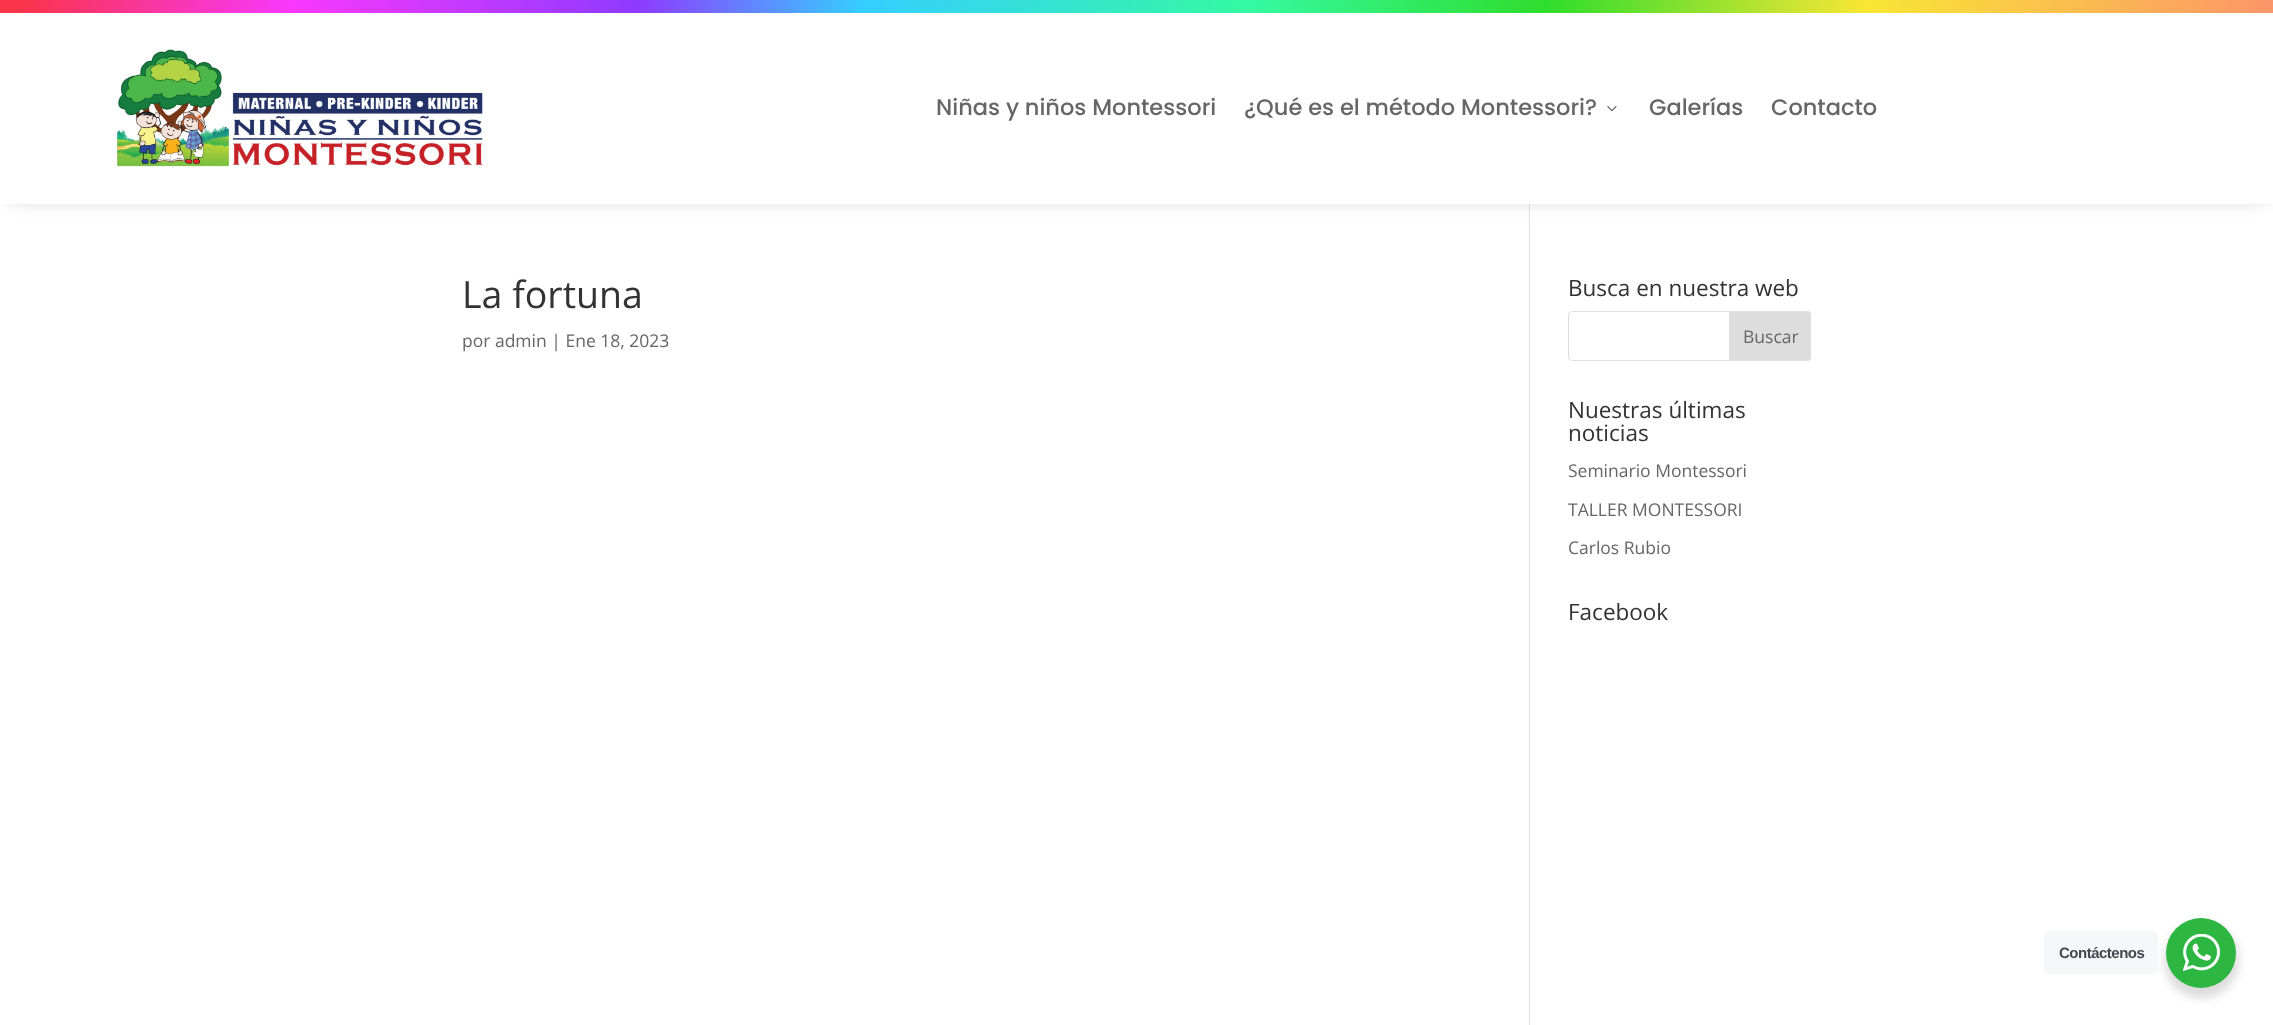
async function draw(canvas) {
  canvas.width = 2273
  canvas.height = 1025
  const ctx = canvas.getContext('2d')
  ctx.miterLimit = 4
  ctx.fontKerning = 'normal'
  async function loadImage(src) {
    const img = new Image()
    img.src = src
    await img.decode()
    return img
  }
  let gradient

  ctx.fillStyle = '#fff'
  ctx.fillRect(0, 0, 2273, 1025)
  ctx.fillStyle = '#e2e2e2'
  ctx.fillRect(1529, 204, 1, 821)
  ctx.fillStyle = '#0000004d'
  ctx.filter = 'blur(10px)'
  ctx.beginPath()
  ctx.rect(8, 20, 2258, 176)
  ctx.fill()
  ctx.filter = 'none'
  gradient = ctx.createLinearGradient(2266, 105, 8, -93)
  gradient.addColorStop(0, '#fc9569')
  gradient.addColorStop(0.18, '#f9e634')
  gradient.addColorStop(0.32, '#2fdd2c')
  gradient.addColorStop(0.45, '#34f9a1')
  gradient.addColorStop(0.62, '#35cfff')
  gradient.addColorStop(0.72, '#8f3aff')
  gradient.addColorStop(0.87, '#f838ff')
  gradient.addColorStop(0.99, '#f9344b')
  ctx.fillStyle = gradient
  ctx.fillRect(0, 0, 2273, 13)
  ctx.fillStyle = '#fff'
  ctx.fillRect(0, 13, 2273, 191)
  ctx.drawImage(await loadImage('image0.png'), 116, 49, 368, 118)
  ctx.font = '500 22.5px Poppins'
  ctx.fillStyle = '#666'
  ctx.fillText('Niñas y niños Montessori', 936, 115)
  ctx.fillText('¿Qué es el método Montessori?', 1244, 115)
  ctx.drawImage(await loadImage('image1.png'), 1607, 106, 10, 6)
  ctx.fillText('Galerías', 1649, 115)
  ctx.fillText('Contacto', 1771, 115)
  ctx.font = '37.5px Open Sans'
  ctx.fillStyle = '#333'
  ctx.fillText('La fortuna', 462, 308)
  ctx.font = '17.5px Open Sans'
  ctx.fillStyle = '#666'
  ctx.fillText('por admin | Ene 18, 2023', 462, 347)
  ctx.font = '22.5px Open Sans'
  ctx.fillStyle = '#333'
  ctx.fillText('Busca en nuestra web', 1568, 296)
  ctx.beginPath()
  ctx.roundRect(1568.5, 311.5, 242, 49, 3.5)
  ctx.strokeStyle = '#ddd'
  ctx.stroke()
  ctx.fillStyle = '#ddd'
  ctx.beginPath()
  ctx.roundRect(1729.5, 311.5, 81, 49, [0, 3.5, 3.5, 0])
  ctx.fill()
  ctx.stroke()
  ctx.font = '17.5px Open Sans'
  ctx.fillStyle = '#666'
  ctx.fillText('Buscar', 1743, 343)
  ctx.font = '22.5px Open Sans'
  ctx.fillStyle = '#333'
  ctx.fillText('Nuestras últimas', 1568, 418)
  ctx.fillText('noticias', 1568, 441)
  ctx.font = '17.5px Open Sans'
  ctx.fillStyle = '#666'
  ctx.fillText('Seminario Montessori', 1568, 477)
  ctx.fillText('TALLER MONTESSORI', 1568, 516)
  ctx.fillText('Carlos Rubio', 1568, 554)
  ctx.font = '22.5px Open Sans'
  ctx.fillStyle = '#333'
  ctx.fillText('Facebook', 1568, 620)
  ctx.fillStyle = '#00000024'
  ctx.filter = 'blur(5px)'
  ctx.beginPath()
  ctx.roundRect(2164, 923, 75, 75, 37.5)
  ctx.fill()
  ctx.filter = 'none'
  ctx.fillStyle = '#f5f7f9'
  ctx.beginPath()
  ctx.roundRect(2044, 931, 114, 43, 5)
  ctx.fill()
  ctx.letterSpacing = '-0.5px'
  ctx.font = 'bold 15px Liberation Sans'
  ctx.fillStyle = '#43474e'
  ctx.fillText('Contáctenos', 2059, 958)
  ctx.fillStyle = '#2db742'
  ctx.beginPath()
  ctx.arc(2201, 953, 35, 0, 2 * Math.PI)
  ctx.fill()
  ctx.drawImage(await loadImage('image2.png'), 2183, 934, 37, 37)
}

draw(document.querySelector('canvas'))
